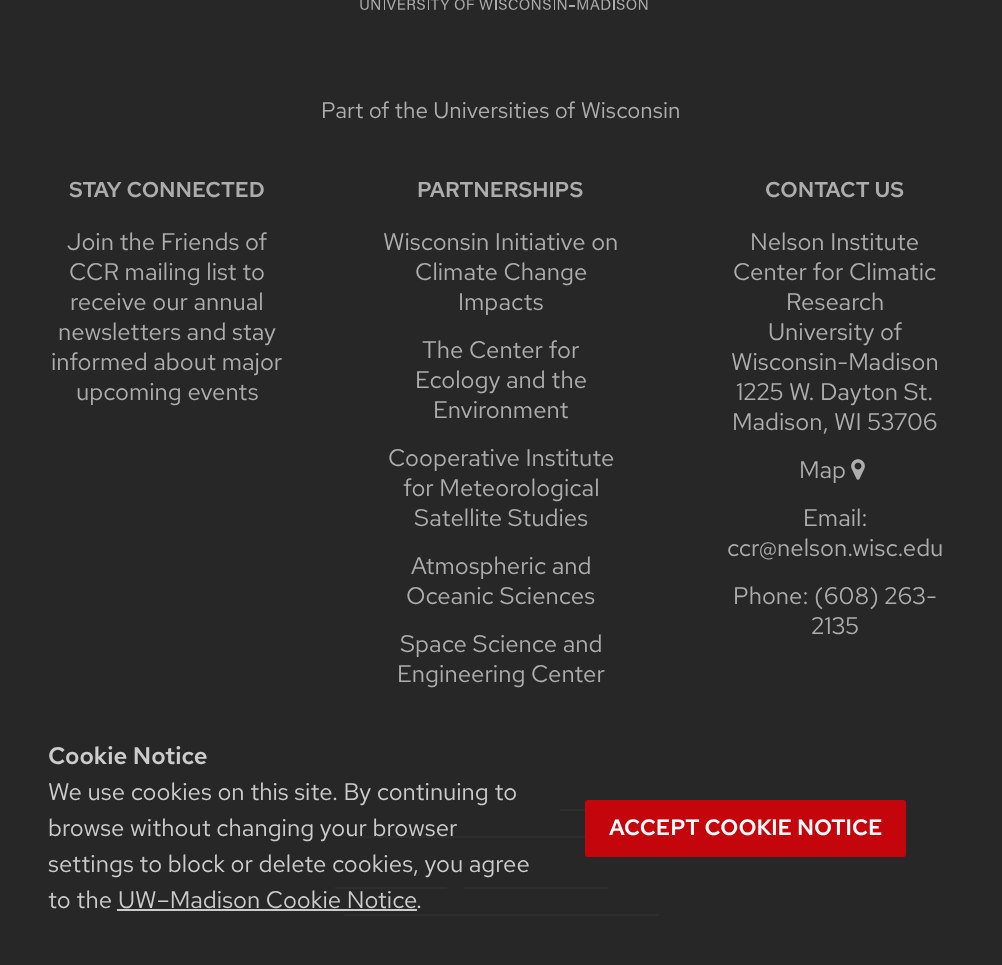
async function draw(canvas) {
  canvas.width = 1002
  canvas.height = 965
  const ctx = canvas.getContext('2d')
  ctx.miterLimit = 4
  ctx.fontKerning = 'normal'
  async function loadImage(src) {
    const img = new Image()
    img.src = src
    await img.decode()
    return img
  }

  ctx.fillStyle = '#282728'
  ctx.fillRect(0, 0, 1002, 965)
  ctx.drawImage(await loadImage('image0.png'), 360, 0, 288, 10)
  ctx.font = '22.5px Red Hat Text'
  ctx.fillStyle = '#adadad'
  ctx.fillText('Part of the Universities of Wisconsin', 321, 118)
  ctx.font = '600 21.5px Red Hat Text'
  ctx.fillText('STAY CONNECTED', 69, 197)
  ctx.font = '24px Red Hat Text'
  ctx.fillText('Join the Friends of', 67, 250)
  ctx.fillText('CCR mailing list to', 69, 280)
  ctx.fillText('receive our annual', 70, 310)
  ctx.fillText('newsletters and stay', 58, 340)
  ctx.fillText('informed about major', 51, 370)
  ctx.fillText('upcoming events', 76, 400)
  ctx.font = '600 21.5px Red Hat Text'
  ctx.fillText('PARTNERSHIPS', 417, 197)
  ctx.font = '24px Red Hat Text'
  ctx.fillText('Wisconsin Initiative on', 383, 250)
  ctx.fillText('Climate Change', 415, 280)
  ctx.fillText('Impacts', 458, 310)
  ctx.fillText('The Center for', 422, 358)
  ctx.fillText('Ecology and the', 415, 388)
  ctx.fillText('Environment', 433, 418)
  ctx.fillText('Cooperative Institute', 388, 466)
  ctx.fillText('for Meteorological', 403, 496)
  ctx.fillText('Satellite Studies', 414, 526)
  ctx.fillText('Atmospheric and', 411, 574)
  ctx.fillText('Oceanic Sciences', 406, 604)
  ctx.fillText('Space Science and', 400, 652)
  ctx.fillText('Engineering Center', 397, 682)
  ctx.font = '600 21.5px Red Hat Text'
  ctx.fillText('CONTACT US', 765, 197)
  ctx.font = '24px Red Hat Text'
  ctx.fillText('Nelson Institute', 750, 250)
  ctx.fillText('Center for Climatic', 733, 280)
  ctx.fillText('Research', 786, 310)
  ctx.fillText('University of', 768, 340)
  ctx.fillText('Wisconsin-Madison', 731, 370)
  ctx.fillText('1225 W. Dayton St.', 736, 400)
  ctx.fillText('Madison, WI 53706', 732, 430)
  ctx.fillText('Map', 799, 478)
  ctx.drawImage(await loadImage('image1.png'), 851, 459, 14, 21)
  ctx.fillText('Email:', 803, 526)
  ctx.fillText('ccr@nelson.wisc.edu', 727, 556)
  ctx.fillText('Phone: (608) 263-', 733, 604)
  ctx.fillText('2135', 811, 634)
  ctx.fillStyle = '#2f2e2f'
  ctx.fillRect(560, 809, 25, 2)
  ctx.fillRect(356, 836, 229, 2)
  ctx.fillRect(335, 887, 112, 2)
  ctx.fillRect(464, 887, 144, 2)
  ctx.fillRect(344, 914, 315, 2)
  ctx.font = '600 24px Red Hat Text'
  ctx.fillStyle = '#ccc'
  ctx.fillText('Cookie Notice', 48, 764)
  ctx.font = '24px Red Hat Text'
  ctx.fillText('We use cookies on this site. By continuing to', 48, 800)
  ctx.fillText('browse without changing your browser', 48, 836)
  ctx.fillText('settings to block or delete cookies, you agree', 48, 872)
  ctx.fillText('to the', 48, 908)
  ctx.fillText('UW–Madison Cookie Notice', 118, 908)
  ctx.fillRect(117, 909, 300, 2)
  ctx.fillText('.', 416, 908)
  ctx.fillStyle = '#c5050c'
  ctx.beginPath()
  ctx.roundRect(585, 800, 321, 57, 3)
  ctx.fill()
  ctx.font = '600 22.25px Red Hat Text'
  ctx.fillStyle = '#fff'
  ctx.fillText('ACCEPT COOKIE NOTICE', 609, 835)
}

draw(document.querySelector('canvas'))
